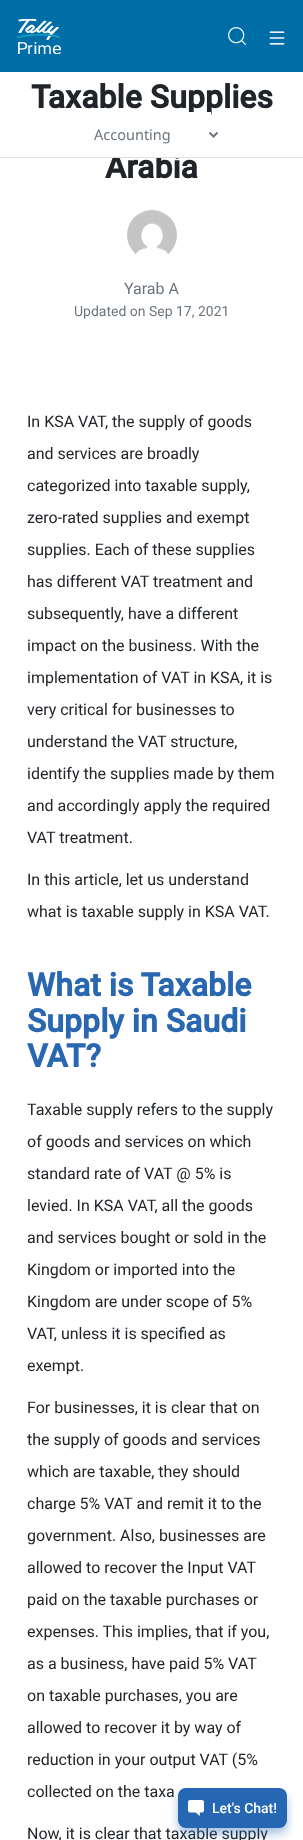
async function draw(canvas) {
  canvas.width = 303
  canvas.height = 1840
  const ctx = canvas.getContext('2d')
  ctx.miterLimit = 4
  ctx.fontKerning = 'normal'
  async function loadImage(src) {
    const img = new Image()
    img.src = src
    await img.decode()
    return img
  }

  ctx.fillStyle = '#fff'
  ctx.fillRect(0, 0, 303, 1840)
  ctx.fillStyle = '#006ea6'
  ctx.fillRect(0, 0, 303, 72)
  ctx.drawImage(await loadImage('image0.png'), 16, 19, 45, 35)
  ctx.drawImage(await loadImage('image1.png'), 228, 27, 18, 18)
  ctx.drawImage(await loadImage('image2.png'), 269, 31, 16, 14)
  ctx.font = 'bold 32px Roboto'
  ctx.fillStyle = '#212529'
  ctx.fillText('Taxable Supplies', 31, 108)
  ctx.fillText('Arabia', 105, 178)
  ctx.drawImage(await loadImage('image3.png'), 127, 210, 50, 47)
  ctx.font = '16px Roboto'
  ctx.fillStyle = '#6c757d'
  ctx.fillText('Yarab A', 124, 294)
  ctx.font = '14px Roboto'
  ctx.fillText('Updated on Sep 17, 2021', 74, 316)
  ctx.font = '16px Roboto'
  ctx.fillStyle = '#212529'
  ctx.fillText('In KSA VAT, the supply of goods', 27, 427)
  ctx.fillText('and services are broadly', 27, 459)
  ctx.fillText('categorized into taxable supply,', 27, 491)
  ctx.fillText('zero-rated supplies and exempt', 27, 523)
  ctx.fillText('supplies. Each of these supplies', 27, 555)
  ctx.fillText('has different VAT treatment and', 27, 587)
  ctx.fillText('subsequently, have a different', 27, 619)
  ctx.fillText('impact on the business. With the', 27, 651)
  ctx.fillText('implementation of VAT in KSA, it is', 27, 683)
  ctx.fillText('very critical for businesses to', 27, 715)
  ctx.fillText('understand the VAT structure,', 27, 747)
  ctx.fillText('identify the supplies made by them', 27, 779)
  ctx.fillText('and accordingly apply the required', 27, 811)
  ctx.fillText('VAT treatment.', 27, 843)
  ctx.fillText('In this article, let us understand', 27, 885)
  ctx.fillText('what is taxable supply in KSA VAT.', 27, 917)
  ctx.font = 'bold 32px Roboto'
  ctx.fillStyle = '#2a67b1'
  ctx.fillText('What is Taxable', 27, 996)
  ctx.fillText('Supply in Saudi', 27, 1032)
  ctx.fillText('VAT?', 27, 1067)
  ctx.font = '16px Roboto'
  ctx.fillStyle = '#212529'
  ctx.fillText('Taxable supply refers to the supply', 27, 1115)
  ctx.fillText('of goods and services on which', 27, 1147)
  ctx.fillText('standard rate of VAT @ 5% is', 27, 1179)
  ctx.fillText('levied. In KSA VAT, all the goods', 27, 1211)
  ctx.fillText('and services bought or sold in the', 27, 1243)
  ctx.fillText('Kingdom or imported into the', 27, 1275)
  ctx.fillText('Kingdom are under scope of 5%', 27, 1307)
  ctx.fillText('VAT, unless it is specified as', 27, 1339)
  ctx.fillText('exempt.', 27, 1371)
  ctx.fillText('For businesses, it is clear that on', 27, 1413)
  ctx.fillText('the supply of goods and services', 27, 1445)
  ctx.fillText('which are taxable, they should', 27, 1477)
  ctx.fillText('charge 5% VAT and remit it to the', 27, 1509)
  ctx.fillText('government. Also, businesses are', 27, 1541)
  ctx.fillText('allowed to recover the Input VAT', 27, 1573)
  ctx.fillText('paid on the taxable purchases or', 27, 1605)
  ctx.fillText('expenses. This implies, that if you,', 27, 1637)
  ctx.fillText('as a business, have paid 5% VAT', 27, 1669)
  ctx.fillText('on taxable purchases, you are', 27, 1701)
  ctx.fillText('allowed to recover it by way of', 27, 1733)
  ctx.fillText('reduction in your output VAT (5%', 27, 1765)
  ctx.fillText('collected on the taxa', 27, 1797)
  ctx.fillText('Now, it is clear that taxable supply', 27, 1839)
  ctx.fillStyle = '#fff'
  ctx.fillRect(113, 112, 98, 45)
  ctx.fillStyle = '#dee2e6'
  ctx.fillRect(0, 157, 303, 1)
  ctx.beginPath()
  ctx.moveTo(209.5, 132.5)
  ctx.lineTo(213.5, 136.5)
  ctx.lineTo(217.5, 132.5)
  ctx.strokeStyle = '#6c757d'
  ctx.lineWidth = 2
  ctx.stroke()
  ctx.font = '14.5px Noto Sans'
  ctx.fillStyle = '#6c757d'
  ctx.fillText('Accounting', 94, 140)
  ctx.drawImage(await loadImage('image4.png'), 171, 1787, 123, 53)
}

draw(document.querySelector('canvas'))
